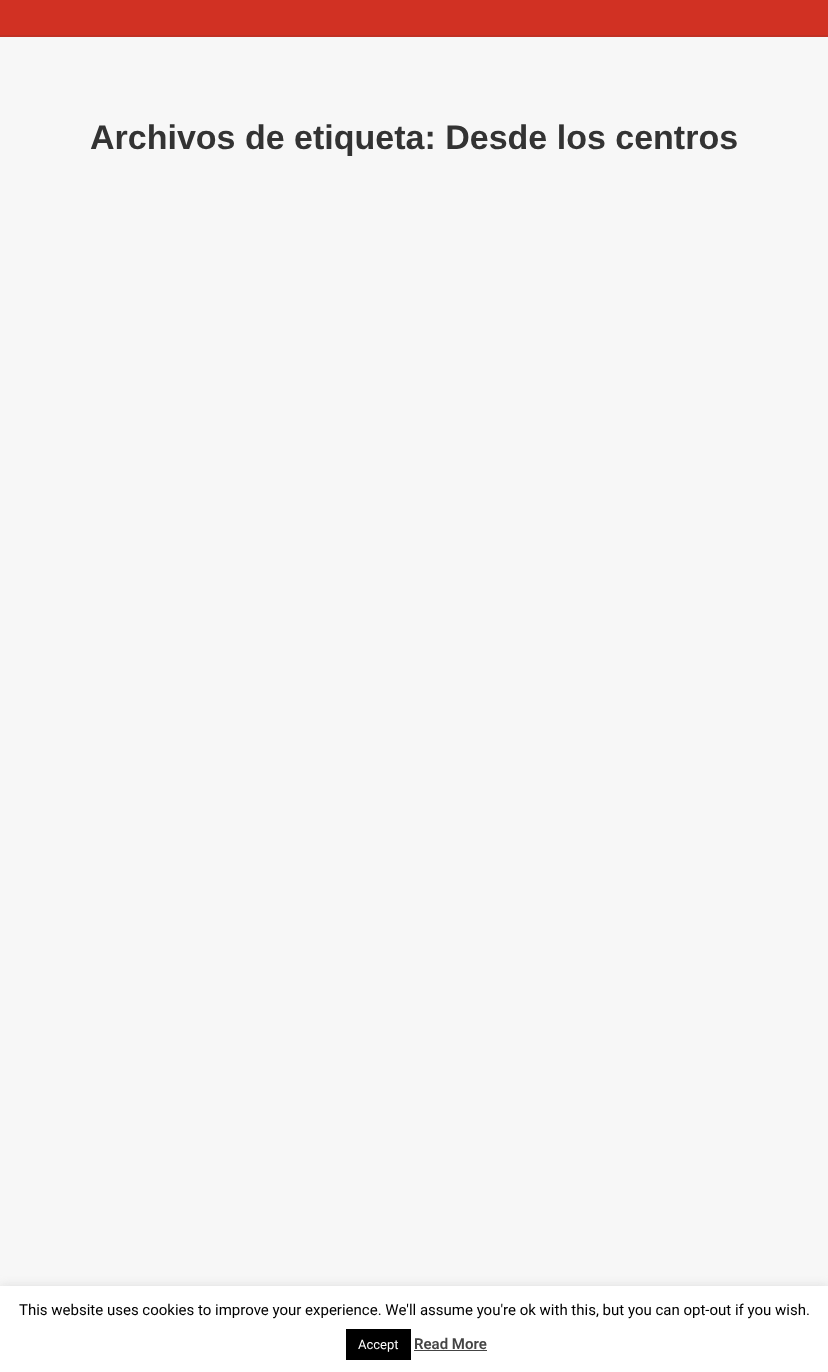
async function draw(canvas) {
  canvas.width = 828
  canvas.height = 1372
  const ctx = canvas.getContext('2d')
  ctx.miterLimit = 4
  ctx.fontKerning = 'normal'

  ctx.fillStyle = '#f7f7f7'
  ctx.fillRect(0, 0, 828, 1372)
  ctx.fillStyle = '#d13123'
  ctx.fillRect(0, 0, 828, 35)
  ctx.fillStyle = '#c03125'
  ctx.fillRect(0, 35, 828, 2)
  ctx.font = 'bold 34px Liberation Sans'
  ctx.fillStyle = '#333'
  ctx.fillText('Archivos de etiqueta: Desde los centros', 90, 149)
  ctx.fillStyle = '#acabab4d'
  ctx.filter = 'blur(5px)'
  ctx.beginPath()
  ctx.rect(0, 1285, 828, 86)
  ctx.fill()
  ctx.filter = 'none'
  ctx.fillStyle = '#fff'
  ctx.fillRect(0, 1286, 828, 86)
  ctx.font = '15px Roboto'
  ctx.fillStyle = '#000'
  ctx.fillText('This website uses cookies to improve your experience. We\'ll assume you\'re ok with this, but you can opt-out if you wish.', 19, 1315)
  ctx.fillRect(346, 1329, 65, 31)
  ctx.font = '13px Roboto'
  ctx.fillStyle = '#fff'
  ctx.fillText('Accept', 358, 1349)
  ctx.font = '600 15px Roboto'
  ctx.fillStyle = '#444'
  ctx.fillText('Read More', 414, 1349)
  ctx.fillRect(414, 1350, 73, 1)
}

draw(document.querySelector('canvas'))
